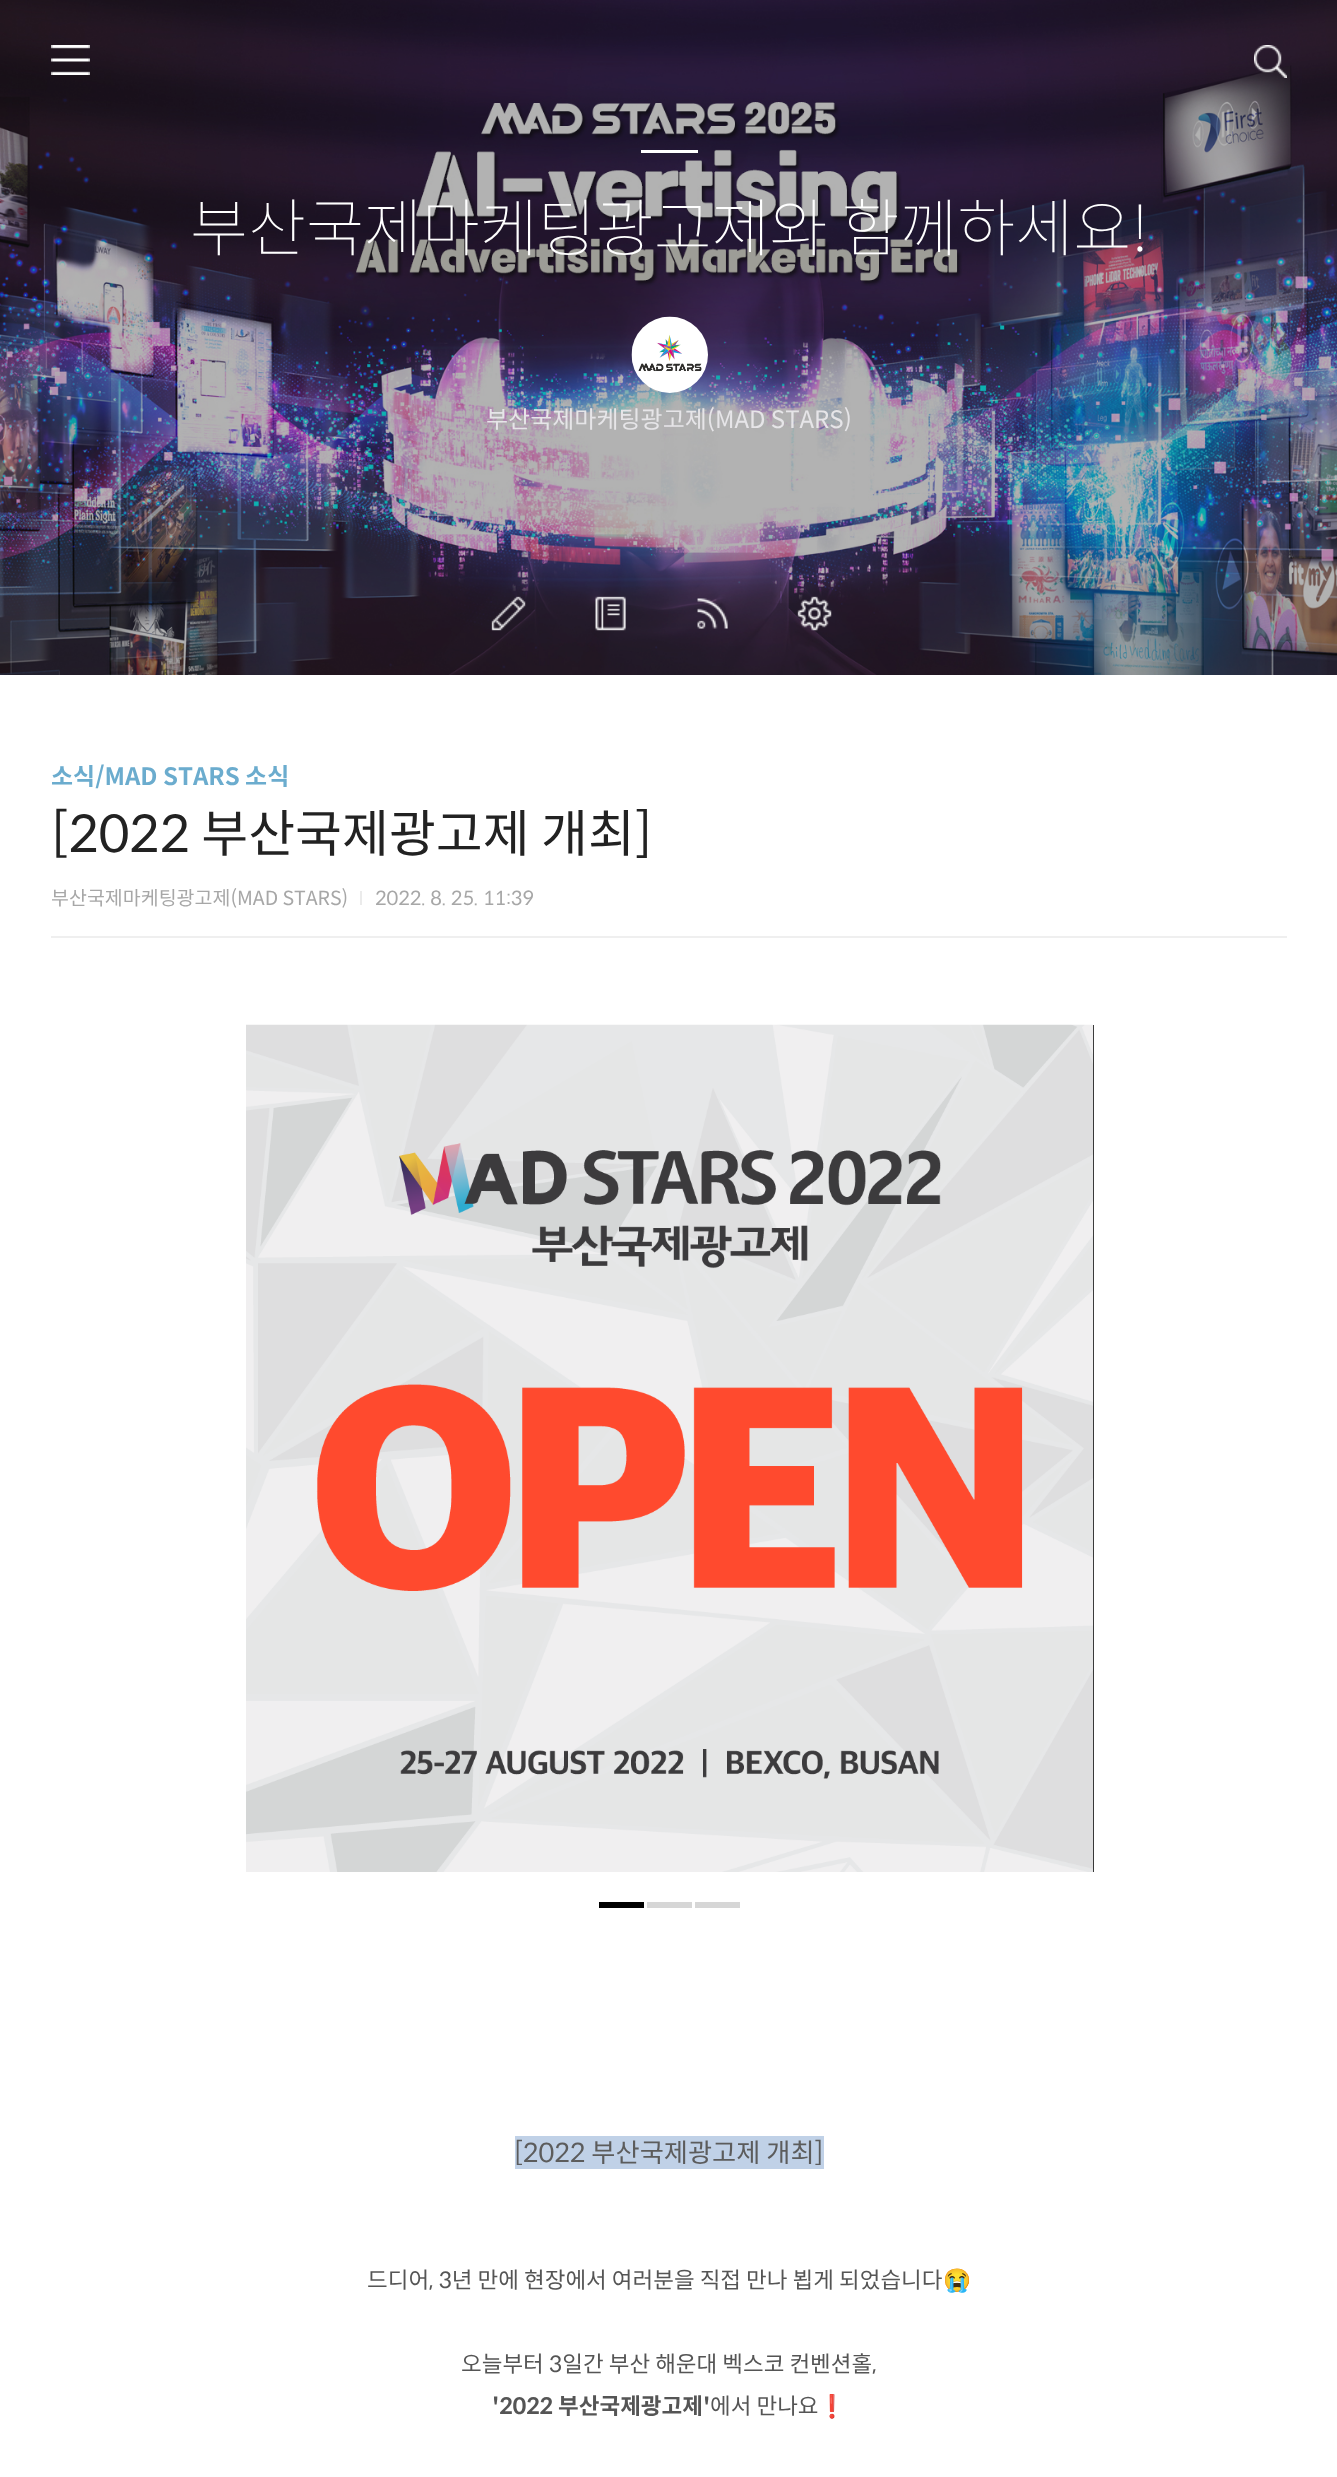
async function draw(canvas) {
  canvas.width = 1337
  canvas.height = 2477
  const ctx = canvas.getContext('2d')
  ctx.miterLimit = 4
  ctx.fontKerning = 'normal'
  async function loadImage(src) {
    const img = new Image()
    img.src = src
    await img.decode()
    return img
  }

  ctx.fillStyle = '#fff'
  ctx.fillRect(0, 0, 1337, 2477)
  ctx.drawImage(await loadImage('image3.png'), 0, 0, 1337, 675)
  ctx.drawImage(await loadImage('image0.png'), 51, 45, 39, 30)
  ctx.drawImage(await loadImage('image1.png'), 1254, 45, 33, 33)
  ctx.fillRect(641, 150, 57, 3)
  ctx.font = '100 63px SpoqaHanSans'
  ctx.fillText('부산국제마케팅광고제와 함께하세요!', 190, 251)
  ctx.drawImage(await loadImage('image2.png'), 631, 316, 77, 77)
  ctx.font = '24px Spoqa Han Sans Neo'
  ctx.fillStyle = '#e6e5e8'
  ctx.fillText('부산국제마케팅광고제(MAD STARS)', 486, 428)
  ctx.drawImage(await loadImage('image4.png'), 491, 596, 35, 35)
  ctx.drawImage(await loadImage('image5.png'), 595, 596, 31, 35)
  ctx.drawImage(await loadImage('image6.png'), 697, 598, 31, 31)
  ctx.drawImage(await loadImage('image7.png'), 797, 596, 35, 35)
  ctx.fillStyle = '#efefef'
  ctx.fillRect(51, 936, 1236, 2)
  ctx.font = 'bold 24px Spoqa Han Sans Neo'
  ctx.fillStyle = '#6bacce'
  ctx.fillText('소식/MAD STARS 소식', 51, 785)
  ctx.font = '51px Spoqa Han Sans Neo'
  ctx.fillStyle = '#222'
  ctx.fillText('[2022 부산국제광고제 개최]', 51, 852)
  ctx.font = '19.5px Spoqa Han Sans Neo'
  ctx.fillStyle = '#a7a7a7'
  ctx.fillText('부산국제마케팅광고제(MAD STARS)', 51, 905)
  ctx.fillStyle = '#ebebeb'
  ctx.fillRect(360, 891, 2, 14)
  ctx.fillStyle = '#a7a7a7'
  ctx.fillText('2022. 8. 25. 11:39', 375, 905)
  ctx.fillStyle = '#000'
  ctx.fillRect(1093, 1025, 1, 847)
  ctx.drawImage(await loadImage('image8.png'), 246, 1024, 848, 848)
  ctx.fillRect(599, 1902, 45, 6)
  ctx.fillStyle = '#d6d6d6'
  ctx.fillRect(647, 1902, 45, 6)
  ctx.fillRect(695, 1902, 45, 6)
  ctx.fillStyle = '#c0d1e7'
  ctx.fillRect(515, 2136, 309, 33)
  ctx.font = '26.25px Spoqa Han Sans Neo'
  ctx.fillStyle = '#5c5c5c'
  ctx.fillText('[2022 부산국제광고제 개최]', 514, 2162)
  ctx.font = '22.5px Spoqa Han Sans Neo'
  ctx.fillStyle = '#555'
  ctx.fillText('드디어, 3년 만에 현장에서 여러분을 직접 만나 뵙게 되었습니다', 367, 2288)
  ctx.font = '22.5px Noto Color Emoji'
  ctx.fillText('😭', 943, 2288)
  ctx.font = '22.5px Spoqa Han Sans Neo'
  ctx.fillText('오늘부터 3일간 부산 해운대 벡스코 컨벤션홀,', 461, 2372)
  ctx.font = 'bold 22.5px Spoqa Han Sans Neo'
  ctx.fillText('\'2022 부산국제광고제\'', 492, 2414)
  ctx.font = '22.5px Spoqa Han Sans Neo'
  ctx.fillText('에서 만나요', 710, 2414)
  ctx.font = '22.5px Noto Color Emoji'
  ctx.fillText('❗', 818, 2414)
}

draw(document.querySelector('canvas'))
